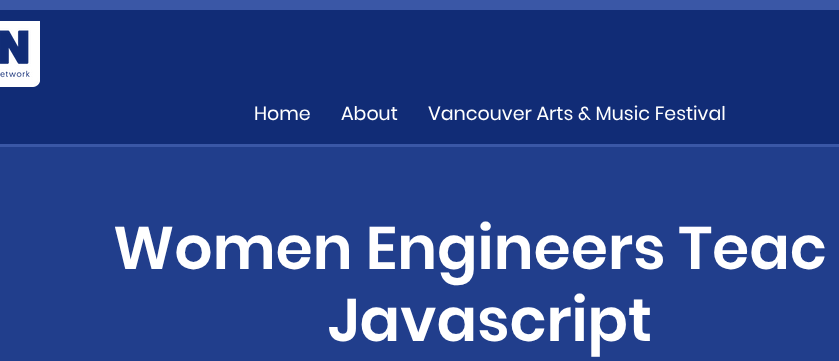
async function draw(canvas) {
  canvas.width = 839
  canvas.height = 361
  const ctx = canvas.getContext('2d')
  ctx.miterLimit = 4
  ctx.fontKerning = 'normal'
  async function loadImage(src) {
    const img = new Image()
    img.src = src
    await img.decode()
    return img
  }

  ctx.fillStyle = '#3a57a6'
  ctx.fillRect(0, 0, 839, 361)
  ctx.fillStyle = '#112c76'
  ctx.fillRect(0, 10, 839, 134)
  ctx.drawImage(await loadImage('image0.png'), 0, 21, 40, 66)
  ctx.font = '19px Poppins'
  ctx.fillStyle = '#fff'
  ctx.fillText('Home', 254, 120)
  ctx.fillText('About', 341, 120)
  ctx.fillText('Vancouver Arts & Music Festival', 428, 120)
  ctx.fillStyle = '#213e8c'
  ctx.fillRect(0, 147, 839, 214)
  ctx.font = '600 60px Poppins'
  ctx.fillStyle = '#fff'
  ctx.fillText('Women Engineers Teac', 113, 269)
  ctx.fillText('Javascript', 328, 341)
}

draw(document.querySelector('canvas'))
